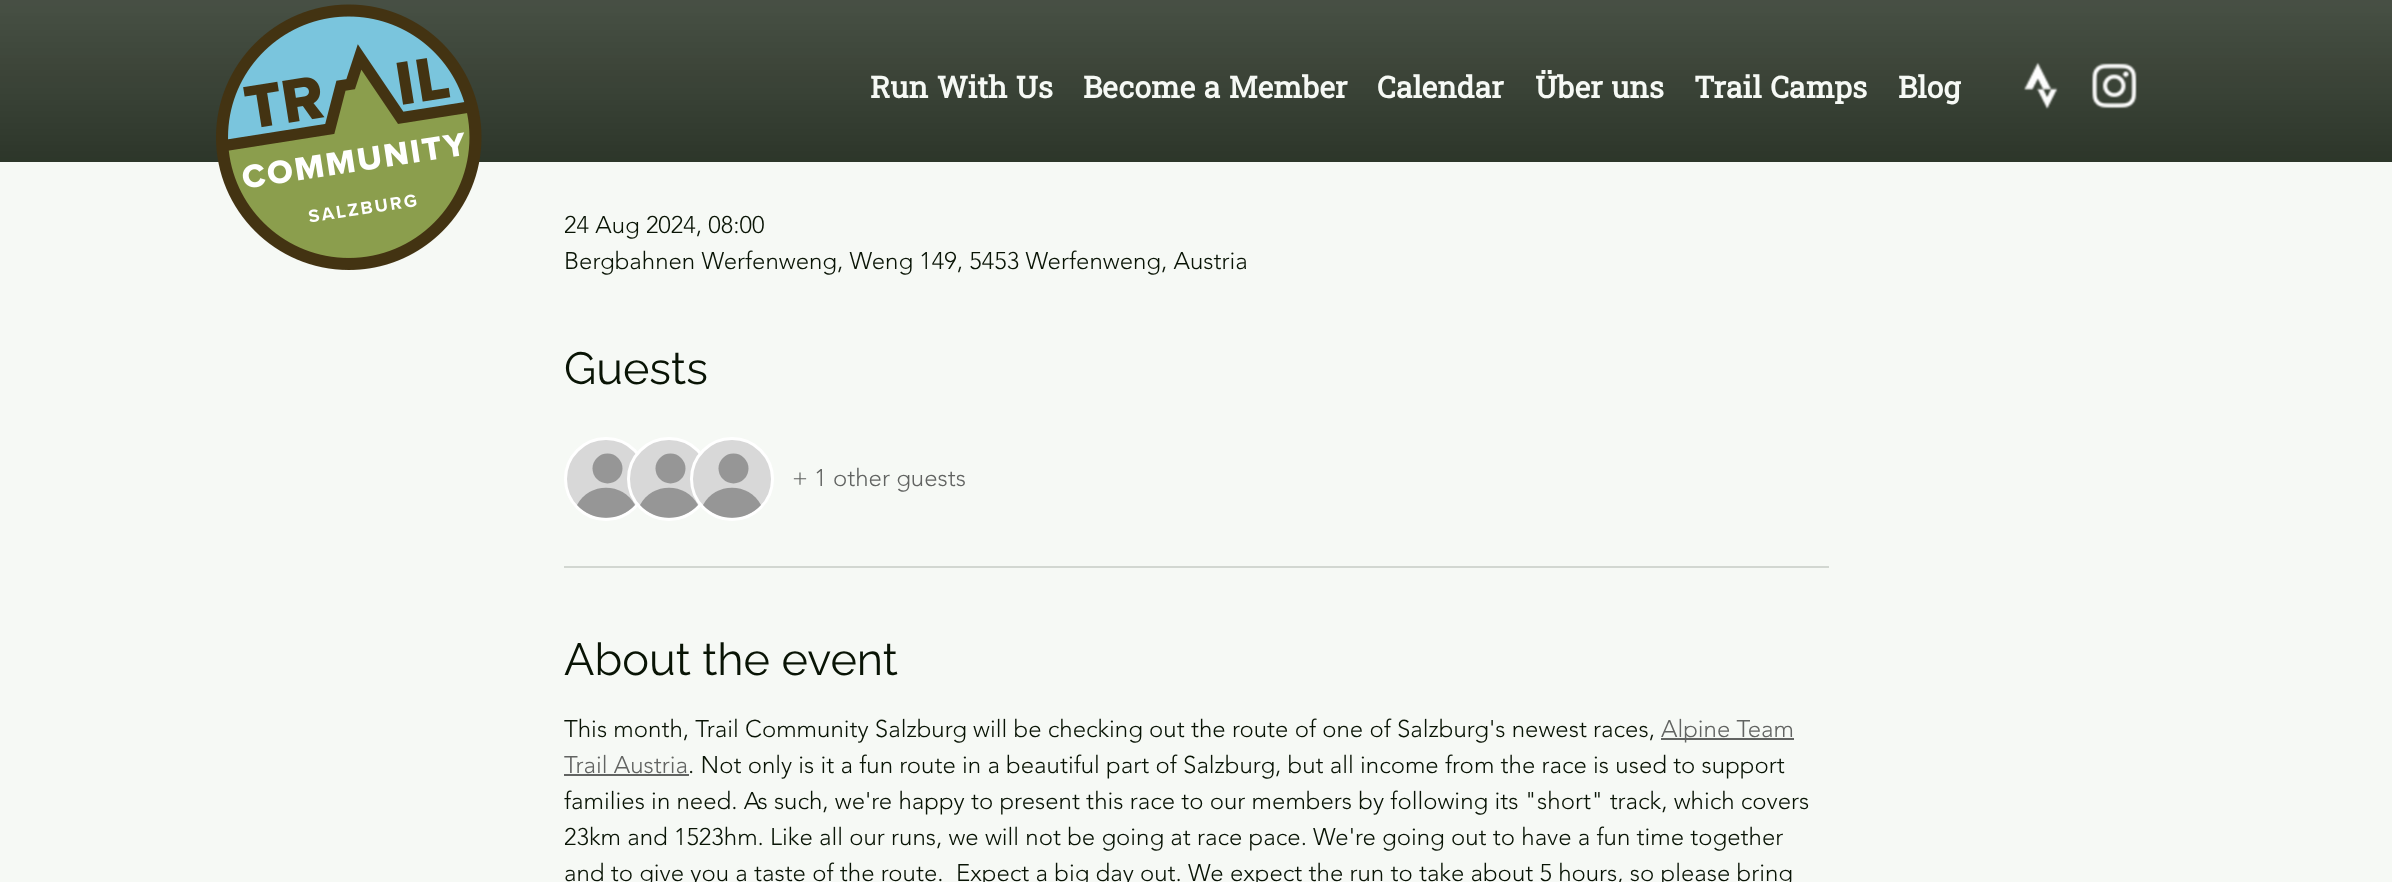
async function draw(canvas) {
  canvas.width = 2392
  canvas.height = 882
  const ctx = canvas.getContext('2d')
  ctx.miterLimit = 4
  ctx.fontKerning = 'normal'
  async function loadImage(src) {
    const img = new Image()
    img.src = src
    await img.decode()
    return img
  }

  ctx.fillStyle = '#f6f9f5'
  ctx.fillRect(0, 0, 2392, 882)
  ctx.fillStyle = '#091405'
  ctx.fillRect(0, 0, 2392, 162)
  ctx.drawImage(await loadImage('image0.png'), 0, 0, 2392, 162)
  ctx.drawImage(await loadImage('image1.png'), 216, 4, 266, 266)
  ctx.wordSpacing = '1px'
  ctx.font = 'bold 30px Roboto Slab'
  ctx.fillStyle = '#f6f9f5'
  ctx.fillText('Run With Us', 870, 98)
  ctx.fillText('Become a Member', 1083, 98)
  ctx.wordSpacing = '0px'
  ctx.fillText('Calendar', 1377, 98)
  ctx.wordSpacing = '1px'
  ctx.fillText('Über uns', 1535, 98)
  ctx.fillText('Trail Camps', 1694, 98)
  ctx.wordSpacing = '0px'
  ctx.fillText('Blog', 1898, 98)
  ctx.drawImage(await loadImage('image2.png'), 2023, 62, 35, 48)
  ctx.drawImage(await loadImage('image3.png'), 2091, 63, 46, 46)
  ctx.font = '300 24px "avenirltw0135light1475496"'
  ctx.fillStyle = '#091405'
  ctx.fillText('24 Aug 2024, 08:00', 564, 233)
  ctx.fillText('Bergbahnen Werfenweng, Weng 149, 5453 Werfenweng, Austria', 564, 269)
  ctx.font = '45px Raleway'
  ctx.fillText('Guests', 564, 384)
  ctx.fillStyle = '#d8d8d8'
  ctx.beginPath()
  ctx.arc(606, 479, 40.5, 0, 2 * Math.PI)
  ctx.fill()
  ctx.strokeStyle = '#fff'
  ctx.lineWidth = 3
  ctx.stroke()
  ctx.fillStyle = '#969696'
  ctx.beginPath()
  ctx.arc(607.5, 468.5, 15, 0, 2 * Math.PI)
  ctx.fill()
  ctx.beginPath()
  ctx.moveTo(635, 505)
  ctx.bezierCurveTo(620, 522, 592, 522, 577, 505)
  ctx.bezierCurveTo(589, 482, 623, 482, 635, 505)
  ctx.closePath()
  ctx.fill()
  ctx.fillStyle = '#d8d8d8'
  ctx.beginPath()
  ctx.arc(669, 479, 40.5, 0, 2 * Math.PI)
  ctx.fill()
  ctx.stroke()
  ctx.fillStyle = '#969696'
  ctx.beginPath()
  ctx.arc(670.5, 468.5, 15, 0, 2 * Math.PI)
  ctx.fill()
  ctx.beginPath()
  ctx.moveTo(698, 505)
  ctx.bezierCurveTo(683, 522, 655, 522, 640, 505)
  ctx.bezierCurveTo(652, 482, 686, 482, 698, 505)
  ctx.closePath()
  ctx.fill()
  ctx.fillStyle = '#d8d8d8'
  ctx.beginPath()
  ctx.arc(732, 479, 40.5, 0, 2 * Math.PI)
  ctx.fill()
  ctx.stroke()
  ctx.fillStyle = '#969696'
  ctx.beginPath()
  ctx.arc(733.5, 468.5, 15, 0, 2 * Math.PI)
  ctx.fill()
  ctx.beginPath()
  ctx.moveTo(761, 505)
  ctx.bezierCurveTo(746, 522, 718, 522, 703, 505)
  ctx.bezierCurveTo(715, 482, 749, 482, 761, 505)
  ctx.closePath()
  ctx.fill()
  ctx.font = '300 24px "avenirltw0135light1475496"'
  ctx.fillStyle = '#626462'
  ctx.fillText('+ 1 other guests', 792, 486)
  ctx.fillStyle = '#d2d7d1'
  ctx.fillRect(564, 566, 1265, 2)
  ctx.font = '45px Raleway'
  ctx.fillStyle = '#091405'
  ctx.fillText('About the event', 564, 675)
  ctx.font = '300 24px "avenirltw0135light1475496"'
  ctx.fillText('This month, Trail Community Salzburg will be checking out the route of one of Salzburg\'s newest races,', 564, 737)
  ctx.fillStyle = '#626462'
  ctx.fillRect(1661, 738, 133, 2)
  ctx.fillText('Alpine Team', 1661, 737)
  ctx.fillText('Trail Austria', 564, 773)
  ctx.fillRect(564, 774, 125, 2)
  ctx.fillStyle = '#091405'
  ctx.fillText('. Not only is it a fun route in a beautiful part of Salzburg, but all income from the race is used to support', 688, 773)
  ctx.fillText('families in need. As such, we\'re happy to present this race to our members by following its "short" track, which covers', 564, 809)
  ctx.fillText('23km and 1523hm. Like all our runs, we will not be going at race pace. We\'re going out to have a fun time together', 564, 845)
  ctx.fillText('and to give you a taste of the route.  Expect a big day out. We expect the run to take about 5 hours, so please bring', 564, 881)
}

draw(document.querySelector('canvas'))
